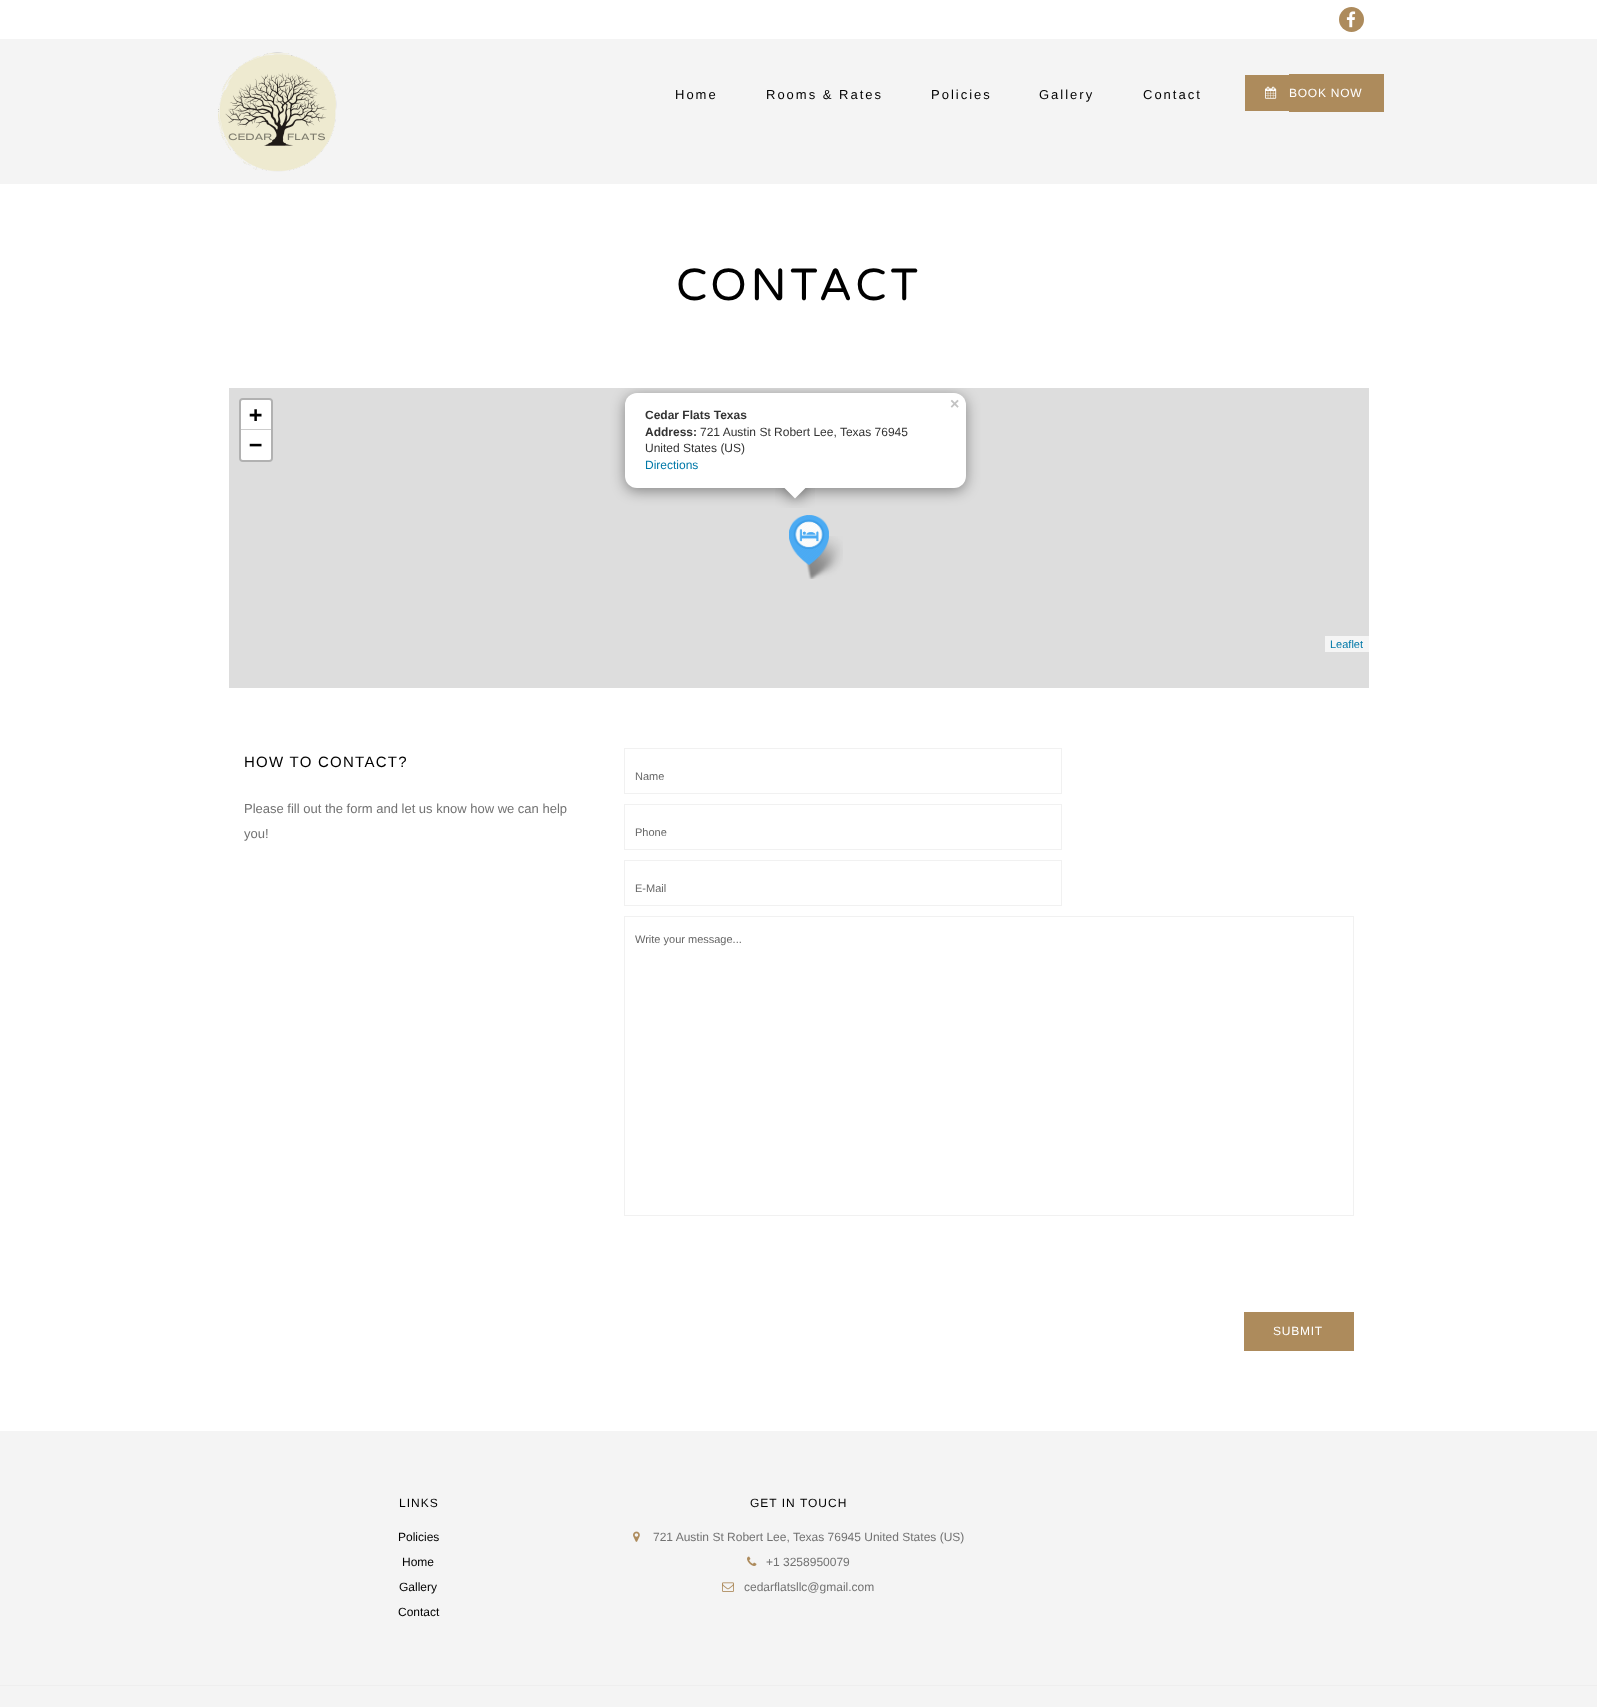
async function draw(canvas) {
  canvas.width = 1597
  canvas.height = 1707
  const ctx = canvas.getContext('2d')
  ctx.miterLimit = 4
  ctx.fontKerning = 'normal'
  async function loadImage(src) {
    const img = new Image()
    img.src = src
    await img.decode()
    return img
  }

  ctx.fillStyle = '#fff'
  ctx.fillRect(0, 0, 1597, 1707)
  ctx.fillStyle = '#ad8b5c'
  ctx.beginPath()
  ctx.arc(1351.5, 19.5, 12.5, 0, 2 * Math.PI)
  ctx.fill()
  ctx.drawImage(await loadImage('image0.png'), 1346, 11, 10, 17)
  ctx.fillStyle = '#f4f4f4'
  ctx.fillRect(0, 39, 1597, 145)
  ctx.drawImage(await loadImage('image1.png'), 218, 52, 119, 120)
  ctx.letterSpacing = '2px'
  ctx.font = '13px Liberation Sans'
  ctx.fillStyle = '#000'
  ctx.fillText('Home', 675, 99)
  ctx.fillText('Rooms & Rates', 766, 99)
  ctx.fillText('Policies', 931, 99)
  ctx.fillText('Gallery', 1039, 99)
  ctx.fillText('Contact', 1143, 99)
  ctx.fillStyle = '#ad8b5c'
  ctx.fillRect(1245, 75, 44, 36)
  ctx.fillRect(1289, 74, 95, 38)
  ctx.drawImage(await loadImage('image2.png'), 1265, 86, 12, 13)
  ctx.letterSpacing = '0.75px'
  ctx.font = '12px Liberation Sans'
  ctx.fillStyle = '#fff'
  ctx.fillText('BOOK NOW', 1289, 97)
  ctx.letterSpacing = '3.75px'
  ctx.font = '45px Varela Round'
  ctx.fillStyle = '#000'
  ctx.fillText('CONTACT', 676, 300)
  ctx.fillStyle = '#ddd'
  ctx.fillRect(229, 388, 1140, 300)
  ctx.save()
  ctx.beginPath()
  ctx.rect(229, 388, 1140, 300)
  ctx.clip()
  ctx.fillStyle = '#00000066'
  ctx.filter = 'blur(7px)'
  ctx.beginPath()
  ctx.roundRect(625, 396, 341, 95, 12)
  ctx.fill()
  ctx.filter = 'none'
  ctx.restore()
  ctx.fillStyle = '#fff'
  ctx.beginPath()
  ctx.roundRect(625, 393, 341, 95, 12)
  ctx.fill()
  ctx.letterSpacing = '0px'
  ctx.font = 'bold 16px Liberation Sans'
  ctx.fillStyle = '#c3c3c3'
  ctx.fillText('×', 950, 409)
  ctx.font = 'bold 12px Liberation Sans'
  ctx.fillStyle = '#333'
  ctx.fillText('Cedar Flats Texas', 645, 419)
  ctx.fillText('Address:', 645, 436)
  ctx.font = '12px Liberation Sans'
  ctx.fillText('721 Austin St Robert Lee, Texas 76945', 700, 436)
  ctx.fillText('United States (US)', 645, 452)
  ctx.fillStyle = '#0078a8'
  ctx.fillText('Directions', 645, 469)
  ctx.drawImage(await loadImage('image4.png'), 806, 536, 37, 43)
  ctx.drawImage(await loadImage('image3.png'), 789, 515, 40, 50)
  ctx.save()
  ctx.beginPath()
  ctx.rect(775, 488, 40, 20)
  ctx.clip()
  ctx.fillStyle = '#00000066'
  ctx.filter = 'blur(7px)'
  ctx.beginPath()
  ctx.rect(787, 481, 17, 17)
  ctx.fill()
  ctx.filter = 'none'
  ctx.restore()
  ctx.save()
  ctx.beginPath()
  ctx.rect(775, 488, 40, 20)
  ctx.clip()
  ctx.fillStyle = '#fff'
  ctx.beginPath()
  ctx.moveTo(795, 474.5)
  ctx.lineTo(807, 486.5)
  ctx.lineTo(795, 498.5)
  ctx.lineTo(783, 486.5)
  ctx.closePath()
  ctx.fill()
  ctx.restore()
  ctx.beginPath()
  ctx.roundRect(240, 399, 32, 62, 3)
  ctx.strokeStyle = '#b1b1b1'
  ctx.lineWidth = 2
  ctx.stroke()
  ctx.fillStyle = '#fff'
  ctx.beginPath()
  ctx.roundRect(241, 400, 30, 30, [2, 2, 0, 0])
  ctx.fill()
  ctx.fillStyle = '#ccc'
  ctx.fillRect(241, 429, 30, 1)
  ctx.font = 'bold 22px DejaVu Sans Mono'
  ctx.fillStyle = '#000'
  ctx.fillText('+', 249, 422)
  ctx.fillStyle = '#fff'
  ctx.beginPath()
  ctx.roundRect(241, 430, 30, 30, [0, 0, 2, 2])
  ctx.fill()
  ctx.fillStyle = '#000'
  ctx.fillText('−', 249, 452)
  ctx.fillStyle = '#f5f5f5'
  ctx.fillRect(1325, 636, 44, 16)
  ctx.font = '11px Liberation Sans'
  ctx.fillStyle = '#0078a8'
  ctx.fillText('Leaflet', 1330, 648)
  ctx.letterSpacing = '1.25px'
  ctx.font = '15px Liberation Sans'
  ctx.fillStyle = '#000'
  ctx.fillText('HOW TO CONTACT?', 244, 767)
  ctx.letterSpacing = '0px'
  ctx.font = '13px Liberation Sans'
  ctx.fillStyle = '#727272'
  ctx.fillText('Please fill out the form and let us know how we can help', 244, 813)
  ctx.fillText('you!', 244, 838)
  ctx.strokeStyle = '#f1f1f1'
  ctx.lineWidth = 1
  ctx.strokeRect(624.5, 748.5, 437, 45)
  ctx.font = '11px Liberation Sans'
  ctx.fillStyle = '#666'
  ctx.fillText('Name', 635, 780)
  ctx.strokeRect(624.5, 804.5, 437, 45)
  ctx.fillText('Phone', 635, 836)
  ctx.strokeRect(624.5, 860.5, 437, 45)
  ctx.fillText('E-Mail', 635, 892)
  ctx.strokeRect(624.5, 916.5, 729, 299)
  ctx.fillText('Write your message...', 635, 943)
  ctx.fillStyle = '#ad8b5c'
  ctx.fillRect(1244, 1312, 110, 39)
  ctx.letterSpacing = '0.75px'
  ctx.font = '12px Liberation Sans'
  ctx.fillStyle = '#fff'
  ctx.fillText('SUBMIT', 1273, 1335)
  ctx.fillStyle = '#f4f4f4'
  ctx.fillRect(0, 1431, 1597, 276)
  ctx.fillStyle = '#eee'
  ctx.fillRect(0, 1685, 1597, 1)
  ctx.letterSpacing = '1px'
  ctx.fillStyle = '#000'
  ctx.fillText('LINKS', 399, 1507)
  ctx.letterSpacing = '0px'
  ctx.fillText('Policies', 398, 1541)
  ctx.fillText('Home', 402, 1566)
  ctx.fillText('Gallery', 399, 1591)
  ctx.fillText('Contact', 398, 1616)
  ctx.letterSpacing = '1px'
  ctx.fillText('GET IN TOUCH', 750, 1507)
  ctx.drawImage(await loadImage('image5.png'), 633, 1531, 7, 11)
  ctx.letterSpacing = '0px'
  ctx.fillStyle = '#727272'
  ctx.fillText('721 Austin St Robert Lee, Texas 76945 United States (US)', 653, 1541)
  ctx.drawImage(await loadImage('image6.png'), 747, 1556, 10, 10)
  ctx.fillText('+1 3258950079', 766, 1566)
  ctx.drawImage(await loadImage('image7.png'), 722, 1582, 12, 10)
  ctx.fillText('cedarflatsllc@gmail.com', 744, 1591)
}

draw(document.querySelector('canvas'))
